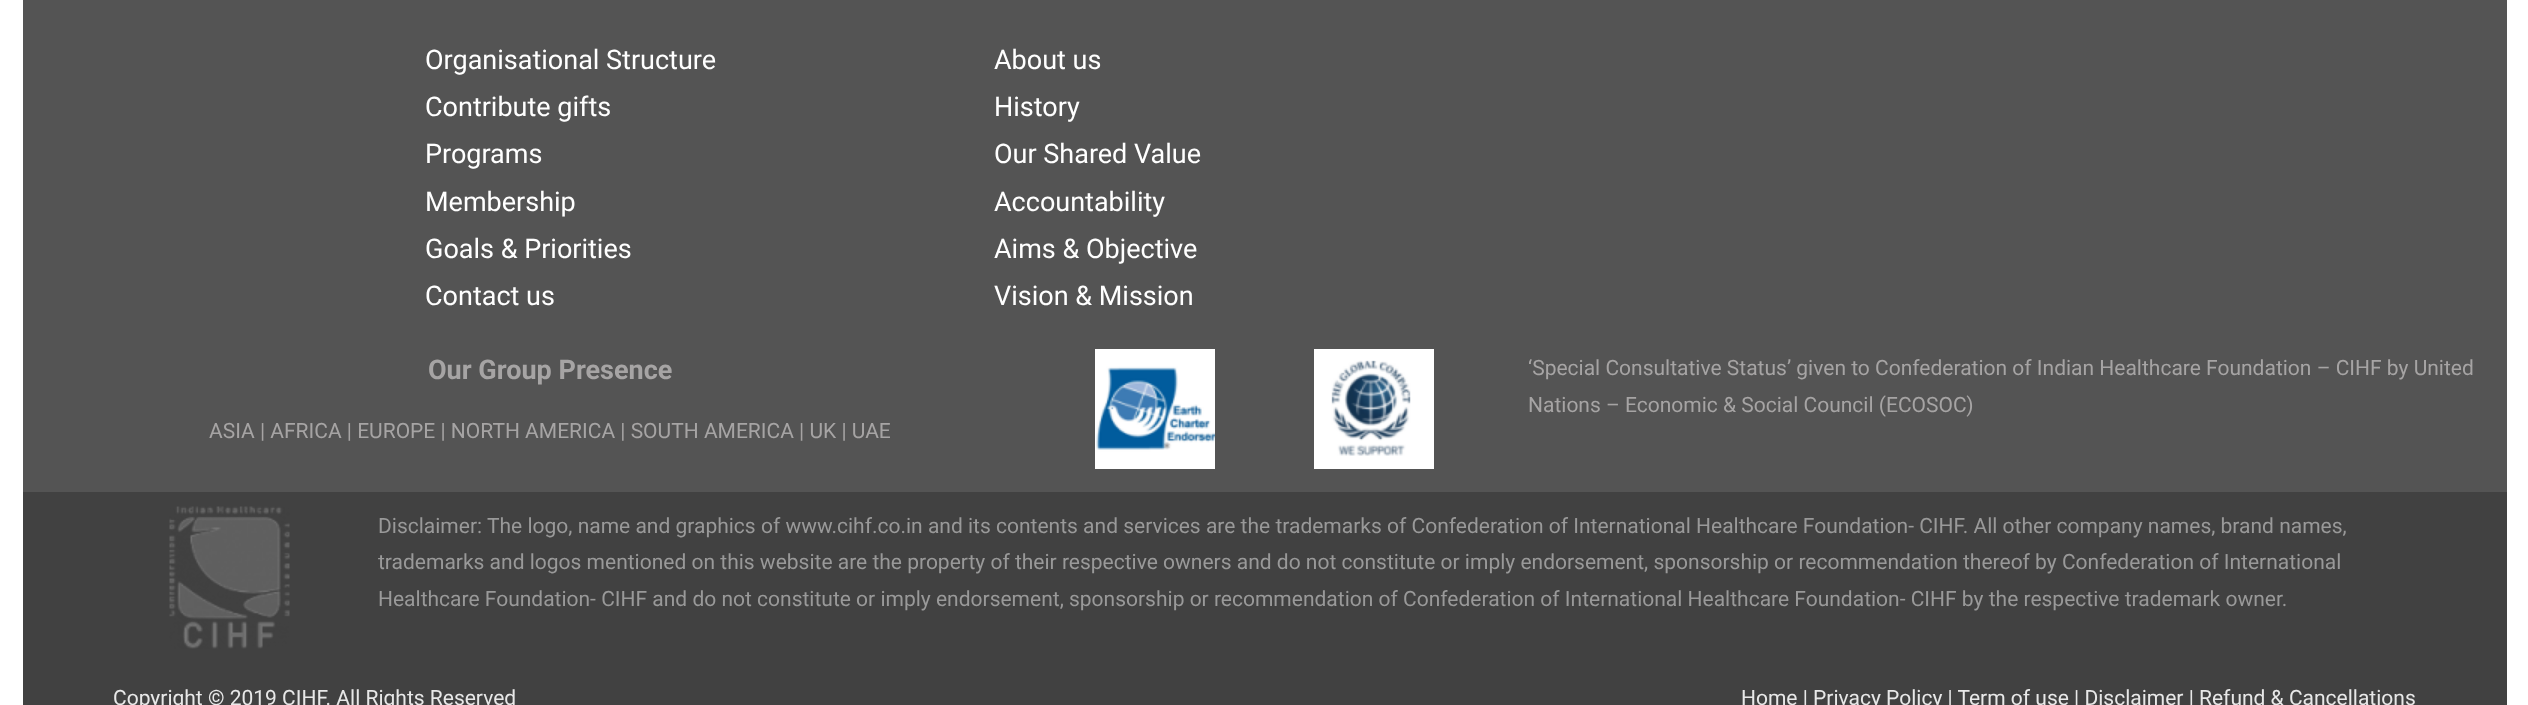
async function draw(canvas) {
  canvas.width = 2528
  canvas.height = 705
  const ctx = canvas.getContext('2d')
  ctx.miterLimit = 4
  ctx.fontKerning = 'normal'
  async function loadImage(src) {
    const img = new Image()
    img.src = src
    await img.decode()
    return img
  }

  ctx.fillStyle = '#fff'
  ctx.fillRect(0, 0, 2528, 705)
  ctx.fillStyle = '#545454'
  ctx.fillRect(23, 0, 2484, 492)
  ctx.font = '27px Roboto'
  ctx.fillStyle = '#fff'
  ctx.fillText('Organisational Structure', 425, 69)
  ctx.fillText('Contribute gifts', 425, 116)
  ctx.fillText('Programs', 425, 163)
  ctx.fillText('Membership', 425, 211)
  ctx.fillText('Goals & Priorities', 425, 258)
  ctx.fillText('Contact us', 425, 305)
  ctx.fillText('About us', 994, 69)
  ctx.fillText('History', 994, 116)
  ctx.fillText('Our Shared Value', 994, 163)
  ctx.fillText('Accountability', 994, 211)
  ctx.fillText('Aims & Objective', 994, 258)
  ctx.fillText('Vision & Mission', 994, 305)
  ctx.font = 'bold 27px Roboto'
  ctx.fillStyle = '#a6a4a4'
  ctx.fillText('Our Group Presence', 428, 379)
  ctx.font = '21px Roboto'
  ctx.fillText('ASIA | AFRICA | EUROPE | NORTH AMERICA | SOUTH AMERICA | UK | UAE', 209, 438)
  ctx.drawImage(await loadImage('image0.png'), 1095, 349, 120, 120)
  ctx.drawImage(await loadImage('image1.png'), 1314, 349, 120, 120)
  ctx.fillText('‘Special Consultative Status’ given to Confederation of Indian Healthcare Foundation – CIHF by United', 1528, 375)
  ctx.fillText('Nations – Economic & Social Council (ECOSOC)', 1528, 412)
  ctx.fillStyle = '#414141'
  ctx.fillRect(23, 492, 2484, 213)
  ctx.drawImage(await loadImage('image2.png'), 169, 506, 121, 143)
  ctx.fillStyle = '#999'
  ctx.fillText('Disclaimer:', 378, 533)
  ctx.fillText('The logo, name and graphics of www.cihf.co.in and its contents and services are the trademarks of Confederation of International Healthcare Foundation- CIHF. All other company names, brand names,', 487, 533)
  ctx.fillText('trademarks and logos mentioned on this website are the property of their respective owners and do not constitute or imply endorsement, sponsorship or recommendation thereof by Confederation of International', 378, 569)
  ctx.fillText('Healthcare Foundation- CIHF and do not constitute or imply endorsement, sponsorship or recommendation of Confederation of International Healthcare Foundation- CIHF by the respective trademark owner.', 378, 606)
  ctx.fillStyle = '#e8e8e8'
  ctx.fillText('Copyright © 2019 CIHF. All Rights Reserved', 113, 705)
  ctx.fillText('Home | Privacy Policy | Term of use | Disclaimer | Refund & Cancellations', 1741, 705)
}

draw(document.querySelector('canvas'))
